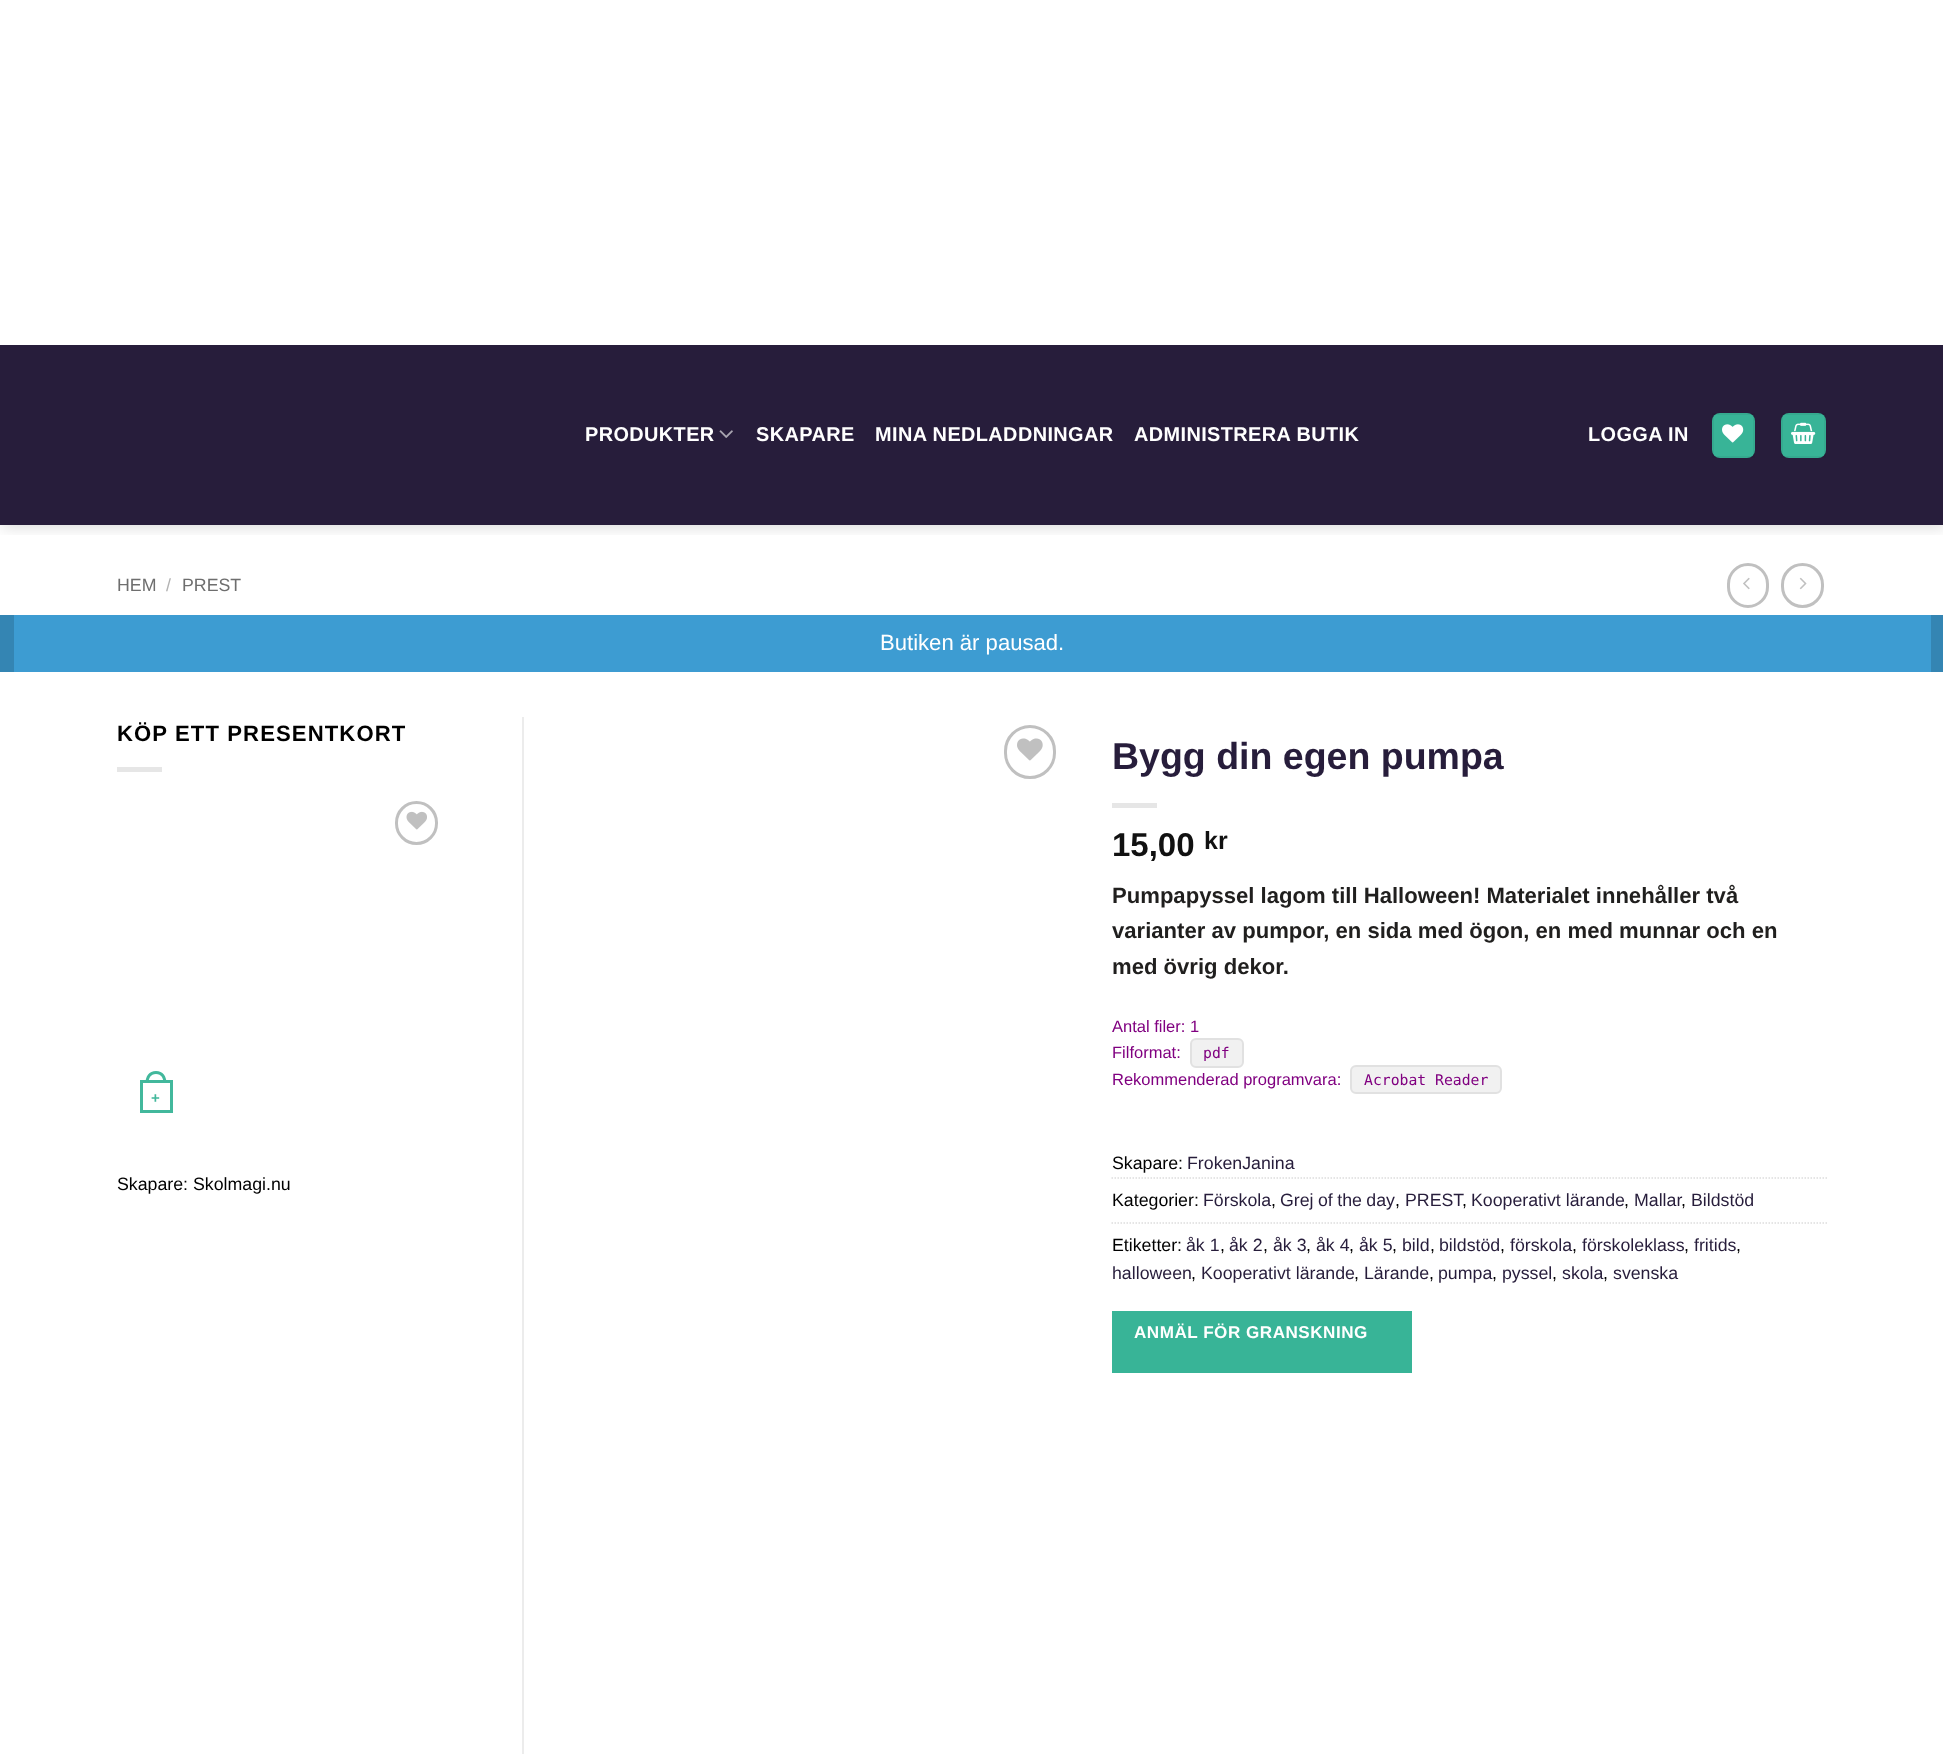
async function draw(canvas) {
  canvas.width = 1943
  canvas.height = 1754
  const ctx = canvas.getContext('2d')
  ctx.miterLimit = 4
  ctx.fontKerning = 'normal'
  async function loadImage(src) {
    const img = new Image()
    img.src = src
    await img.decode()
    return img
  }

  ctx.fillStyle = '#fff'
  ctx.fillRect(0, 0, 1943, 1754)
  ctx.save()
  ctx.beginPath()
  ctx.rect(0, 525, 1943, 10)
  ctx.clip()
  ctx.fillStyle = '#00000026'
  ctx.filter = 'blur(7.5px)'
  ctx.beginPath()
  ctx.rect(2, 2, 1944, 525)
  ctx.fill()
  ctx.filter = 'none'
  ctx.restore()
  ctx.fillStyle = '#271d3b'
  ctx.fillRect(0, 345, 1943, 180)
  ctx.letterSpacing = '0.4px'
  ctx.font = 'bold 19.9px Liberation Sans'
  ctx.fillStyle = '#fff'
  ctx.fillText('PRODUKTER', 585, 441)
  ctx.drawImage(await loadImage('image0.png'), 719, 430, 14, 8)
  ctx.fillText('SKAPARE', 756, 441)
  ctx.fillText('MINA NEDLADDNINGAR', 875, 441)
  ctx.fillText('ADMINISTRERA BUTIK', 1134, 441)
  ctx.fillText('LOGGA IN', 1588, 441)
  ctx.fillStyle = '#38b497'
  ctx.beginPath()
  ctx.roundRect(1712, 413, 43, 45, 8)
  ctx.fill()
  ctx.strokeStyle = '#0000000d'
  ctx.lineWidth = 2
  ctx.strokeRect(1713, 414, 41, 43)
  ctx.drawImage(await loadImage('image1.png'), 1722, 424, 22, 19)
  ctx.beginPath()
  ctx.roundRect(1781, 413, 45, 45, 8)
  ctx.fill()
  ctx.strokeRect(1782, 414, 43, 43)
  ctx.drawImage(await loadImage('image2.png'), 1791, 422, 25, 22)
  ctx.letterSpacing = '0px'
  ctx.font = '17.75px Liberation Sans'
  ctx.fillStyle = '#6e6e6e'
  ctx.fillText('HEM', 117, 591)
  ctx.fillStyle = '#b2b2b2'
  ctx.fillText('/', 166, 591)
  ctx.fillStyle = '#6e6e6e'
  ctx.fillText('PREST', 182, 591)
  ctx.beginPath()
  ctx.roundRect(1728.5, 564.5, 39, 42, 19.5)
  ctx.strokeStyle = '#c0c0c0'
  ctx.lineWidth = 3
  ctx.stroke()
  ctx.drawImage(await loadImage('image3.png'), 1743, 577, 7, 13)
  ctx.beginPath()
  ctx.roundRect(1782.5, 564.5, 40, 42, 20)
  ctx.stroke()
  ctx.drawImage(await loadImage('image4.png'), 1799, 577, 8, 13)
  ctx.fillStyle = '#3d9cd2'
  ctx.fillRect(14, 615, 1917, 57)
  ctx.fillStyle = '#3485b3'
  ctx.fillRect(1931, 615, 12, 57)
  ctx.fillRect(0, 615, 14, 57)
  ctx.font = '22.1px Liberation Sans'
  ctx.fillStyle = '#fff'
  ctx.fillText('Butiken är pausad.', 880, 650)
  ctx.letterSpacing = '1.1px'
  ctx.font = 'bold 22.1px Liberation Sans'
  ctx.fillStyle = '#000'
  ctx.fillText('KÖP ETT PRESENTKORT', 117, 741)
  ctx.fillStyle = '#e6e6e6'
  ctx.fillRect(117, 767, 45, 5)
  ctx.beginPath()
  ctx.roundRect(396.5, 802.5, 40, 41, 20)
  ctx.stroke()
  ctx.drawImage(await loadImage('image5.png'), 406, 811, 21, 19)
  ctx.strokeStyle = '#42b89c'
  ctx.strokeRect(141.5, 1081.5, 30, 30)
  ctx.fillStyle = '#42b89c'
  ctx.beginPath()
  ctx.moveTo(156, 1071)
  ctx.bezierCurveTo(163, 1071, 166.5, 1076.5, 166.5, 1083)
  ctx.lineTo(145.5, 1083)
  ctx.bezierCurveTo(145.5, 1076.5, 149, 1071, 156, 1071)
  ctx.closePath()
  ctx.moveTo(156, 1074)
  ctx.bezierCurveTo(161.5, 1074, 163.5, 1078.5, 163.5, 1083)
  ctx.lineTo(148.5, 1083)
  ctx.bezierCurveTo(148.5, 1078.5, 150.5, 1074, 156, 1074)
  ctx.closePath()
  ctx.fill('evenodd')
  ctx.letterSpacing = '0px'
  ctx.font = 'bold 15px Liberation Sans'
  ctx.fillText('+', 151, 1103)
  ctx.font = '17.75px Liberation Sans'
  ctx.fillStyle = '#000'
  ctx.fillText('Skapare: Skolmagi.nu', 117, 1190)
  ctx.fillStyle = '#ececec'
  ctx.fillRect(522, 717, 2, 1037)
  ctx.beginPath()
  ctx.roundRect(1005.5, 726.5, 49, 51, 24.5)
  ctx.strokeStyle = '#c0c0c0'
  ctx.stroke()
  ctx.drawImage(await loadImage('image6.png'), 1017, 738, 26, 23)
  ctx.font = 'bold 37.5px Liberation Sans'
  ctx.fillStyle = '#271d3b'
  ctx.fillText('Bygg din egen pumpa', 1112, 769)
  ctx.fillStyle = '#e6e6e6'
  ctx.fillRect(1112, 803, 45, 5)
  ctx.font = 'bold 33px Liberation Sans'
  ctx.fillStyle = '#111'
  ctx.fillText('15,00', 1112, 856)
  ctx.font = 'bold 25px Liberation Sans'
  ctx.fillText('kr', 1204, 849)
  ctx.font = 'bold 22.1px Liberation Sans'
  ctx.fillStyle = '#201f1e'
  ctx.fillText('Pumpapyssel lagom till Halloween! Materialet innehåller två', 1112, 903)
  ctx.fillText('varianter av pumpor, en sida med ögon, en med munnar och en', 1112, 938)
  ctx.fillText('med övrig dekor.', 1112, 974)
  ctx.font = '16.5px Liberation Sans'
  ctx.fillStyle = '#800080'
  ctx.fillText('Antal filer: 1', 1112, 1032)
  ctx.fillText('Filformat:', 1112, 1058)
  ctx.fillStyle = '#f1f1f1'
  ctx.beginPath()
  ctx.roundRect(1191, 1039, 52, 28, 5)
  ctx.fill()
  ctx.strokeStyle = '#e1e1e1'
  ctx.lineWidth = 2
  ctx.stroke()
  ctx.font = '14.75px DejaVu Sans Mono'
  ctx.fillStyle = '#800080'
  ctx.fillText('pdf', 1203, 1058)
  ctx.font = '16.5px Liberation Sans'
  ctx.fillText('Rekommenderad programvara:', 1112, 1085)
  ctx.fillStyle = '#f1f1f1'
  ctx.beginPath()
  ctx.roundRect(1351, 1066, 150, 27, 5)
  ctx.fill()
  ctx.stroke()
  ctx.font = '14.75px DejaVu Sans Mono'
  ctx.fillStyle = '#800080'
  ctx.fillText('Acrobat Reader', 1364, 1085)
  ctx.font = '17.75px Liberation Sans'
  ctx.fillStyle = '#000'
  ctx.fillText('Skapare:', 1112, 1169)
  ctx.fillStyle = '#271d3b'
  ctx.fillText('FrokenJanina', 1187, 1169)
  ctx.beginPath()
  ctx.moveTo(1111.5, 1178)
  ctx.lineTo(1827, 1178)
  ctx.strokeStyle = '#ddd'
  ctx.lineWidth = 1.5
  ctx.setLineDash([1.5, 1.5])
  ctx.stroke()
  ctx.fillStyle = '#000'
  ctx.fillText('Kategorier:', 1112, 1206)
  ctx.fillStyle = '#271d3b'
  ctx.fillText('Förskola', 1203, 1206)
  ctx.fillStyle = '#000'
  ctx.fillText(',', 1271, 1206)
  ctx.wordSpacing = '-0.5px'
  ctx.fillStyle = '#271d3b'
  ctx.fillText('Grej of the day', 1280, 1206)
  ctx.wordSpacing = '0px'
  ctx.fillStyle = '#000'
  ctx.fillText(',', 1395, 1206)
  ctx.fillStyle = '#271d3b'
  ctx.fillText('PREST', 1405, 1206)
  ctx.fillText('Kooperativt lärande', 1471, 1206)
  ctx.fillText('Mallar', 1634, 1206)
  ctx.fillText('Bildstöd', 1691, 1206)
  ctx.fillStyle = '#000'
  ctx.fillText(',', 1462, 1206)
  ctx.fillText(',', 1624, 1206)
  ctx.fillText(',', 1681, 1206)
  ctx.beginPath()
  ctx.moveTo(1111.5, 1223)
  ctx.lineTo(1827, 1223)
  ctx.stroke()
  ctx.fillText('Etiketter:', 1112, 1251)
  ctx.fillStyle = '#271d3b'
  ctx.fillText('åk 1', 1186, 1251)
  ctx.fillStyle = '#000'
  ctx.fillText(',', 1220, 1251)
  ctx.fillStyle = '#271d3b'
  ctx.fillText('åk 2', 1229, 1251)
  ctx.fillStyle = '#000'
  ctx.fillText(',', 1263, 1251)
  ctx.fillStyle = '#271d3b'
  ctx.fillText('åk 3', 1273, 1251)
  ctx.fillStyle = '#000'
  ctx.fillText(',', 1306, 1251)
  ctx.fillStyle = '#271d3b'
  ctx.fillText('åk 4', 1316, 1251)
  ctx.fillStyle = '#000'
  ctx.fillText(',', 1349, 1251)
  ctx.fillStyle = '#271d3b'
  ctx.fillText('åk 5', 1359, 1251)
  ctx.fillStyle = '#000'
  ctx.fillText(',', 1392, 1251)
  ctx.fillStyle = '#271d3b'
  ctx.fillText('bild', 1402, 1251)
  ctx.fillStyle = '#000'
  ctx.fillText(',', 1430, 1251)
  ctx.fillStyle = '#271d3b'
  ctx.fillText('bildstöd', 1439, 1251)
  ctx.fillStyle = '#000'
  ctx.fillText(',', 1500, 1251)
  ctx.fillStyle = '#271d3b'
  ctx.fillText('förskola', 1510, 1251)
  ctx.fillStyle = '#000'
  ctx.fillText(',', 1572, 1251)
  ctx.fillStyle = '#271d3b'
  ctx.fillText('förskoleklass', 1582, 1251)
  ctx.fillStyle = '#000'
  ctx.fillText(',', 1684, 1251)
  ctx.fillStyle = '#271d3b'
  ctx.fillText('fritids', 1694, 1251)
  ctx.fillStyle = '#000'
  ctx.fillText(',', 1736, 1251)
  ctx.fillStyle = '#271d3b'
  ctx.fillText('halloween', 1112, 1279)
  ctx.fillStyle = '#000'
  ctx.fillText(',', 1191, 1279)
  ctx.fillStyle = '#271d3b'
  ctx.fillText('Kooperativt lärande', 1201, 1279)
  ctx.fillStyle = '#000'
  ctx.fillText(',', 1354, 1279)
  ctx.fillStyle = '#271d3b'
  ctx.fillText('Lärande', 1364, 1279)
  ctx.fillStyle = '#000'
  ctx.fillText(',', 1429, 1279)
  ctx.fillStyle = '#271d3b'
  ctx.fillText('pumpa', 1438, 1279)
  ctx.fillStyle = '#000'
  ctx.fillText(',', 1492, 1279)
  ctx.fillStyle = '#271d3b'
  ctx.fillText('pyssel', 1502, 1279)
  ctx.fillStyle = '#000'
  ctx.fillText(',', 1552, 1279)
  ctx.fillStyle = '#271d3b'
  ctx.fillText('skola', 1562, 1279)
  ctx.fillStyle = '#000'
  ctx.fillText(',', 1603, 1279)
  ctx.fillStyle = '#271d3b'
  ctx.fillText('svenska', 1613, 1279)
  ctx.fillStyle = '#38b497'
  ctx.fillRect(1112, 1311, 300, 62)
  ctx.letterSpacing = '0.5px'
  ctx.font = 'bold 17.1px Liberation Sans'
  ctx.fillStyle = '#fff'
  ctx.fillText('ANMÄL FÖR GRANSKNING', 1134, 1338)
}

draw(document.querySelector('canvas'))
